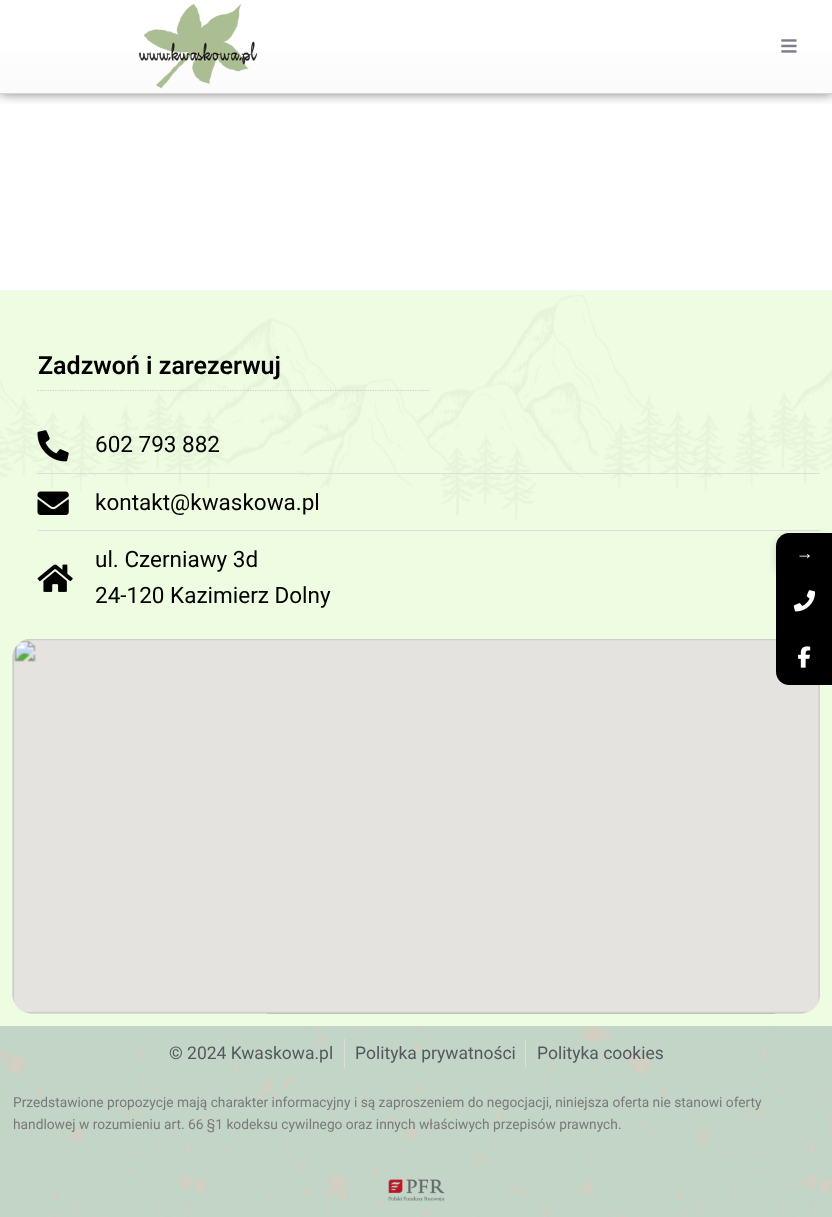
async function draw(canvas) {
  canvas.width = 832
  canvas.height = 1217
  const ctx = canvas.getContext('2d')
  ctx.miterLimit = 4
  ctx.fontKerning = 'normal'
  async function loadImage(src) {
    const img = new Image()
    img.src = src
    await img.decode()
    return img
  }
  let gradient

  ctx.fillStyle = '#fff'
  ctx.fillRect(0, 0, 832, 1217)
  ctx.save()
  ctx.beginPath()
  ctx.rect(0, 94, 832, 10)
  ctx.clip()
  ctx.fillStyle = '#00000080'
  ctx.filter = 'blur(6px)'
  ctx.beginPath()
  ctx.rect(0, 0, 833, 94)
  ctx.fill()
  ctx.filter = 'none'
  ctx.restore()
  gradient = ctx.createLinearGradient(416, 0, 416, 93)
  gradient.addColorStop(0, '#ffffffd1')
  gradient.addColorStop(1, '#fbfbfb')
  ctx.fillStyle = gradient
  ctx.fillRect(0, 51, 832, 42)
  ctx.fillStyle = '#d5d5d5'
  ctx.fillRect(0, 93, 832, 1)
  ctx.drawImage(await loadImage('image0.png'), 138, 3, 120, 86)
  ctx.drawImage(await loadImage('image1.png'), 781, 39, 16, 14)
  ctx.fillStyle = '#eefde2'
  ctx.fillRect(0, 290, 832, 736)
  ctx.drawImage(await loadImage('image2.png'), 0, 295, 832, 224)
  ctx.font = '600 25px Roboto'
  ctx.fillStyle = '#000'
  ctx.fillText('Zadzwoń i zarezerwuj', 38, 374)
  ctx.beginPath()
  ctx.moveTo(37.5, 390.5)
  ctx.lineTo(429, 390.5)
  ctx.strokeStyle = '#ccc'
  ctx.lineWidth = 1.2
  ctx.setLineDash([1.25, 1.25])
  ctx.stroke()
  ctx.drawImage(await loadImage('image3.png'), 37, 430, 32, 32)
  ctx.font = '22.5px Roboto'
  ctx.fillText('602 793 882', 95, 452)
  ctx.fillStyle = '#ddd'
  ctx.fillRect(38, 473, 782, 1)
  ctx.drawImage(await loadImage('image4.png'), 37, 491, 32, 24)
  ctx.fillStyle = '#000'
  ctx.fillText('kontakt@kwaskowa.pl', 95, 510)
  ctx.fillStyle = '#ddd'
  ctx.fillRect(38, 530, 782, 1)
  ctx.drawImage(await loadImage('image5.png'), 37, 564, 36, 28)
  ctx.fillStyle = '#000'
  ctx.fillText('ul. Czerniawy 3d', 95, 567)
  ctx.fillText('24-120 Kazimierz Dolny', 95, 603)
  ctx.drawImage(await loadImage('image6.png'), 12, 639, 808, 375)
  ctx.fillStyle = '#c2d5c7'
  ctx.fillRect(0, 1026, 832, 191)
  ctx.drawImage(await loadImage('image7.png'), 0, 1026, 832, 191)
  ctx.font = '17.5px Roboto'
  ctx.fillStyle = '#54595f'
  ctx.fillText('© 2024 Kwaskowa.pl', 169, 1059)
  ctx.fillStyle = '#ddd'
  ctx.fillRect(344, 1039, 1, 29)
  ctx.fillStyle = '#54595f'
  ctx.fillText('Polityka prywatności', 355, 1059)
  ctx.fillStyle = '#ddd'
  ctx.fillRect(525, 1039, 1, 29)
  ctx.fillStyle = '#54595f'
  ctx.fillText('Polityka cookies', 537, 1059)
  ctx.font = '13.75px Roboto'
  ctx.fillStyle = '#7a7a7a'
  ctx.fillText('Przedstawione propozycje mają charakter informacyjny i są zaproszeniem do negocjacji, niniejsza oferta nie stanowi oferty', 13, 1107)
  ctx.fillText('handlowej w rozumieniu art. 66 §1 kodeksu cywilnego oraz innych właściwych przepisów prawnych.', 13, 1129)
  ctx.drawImage(await loadImage('image8.png'), 388, 1179, 57, 23)
  ctx.fillStyle = '#00000029'
  ctx.filter = 'blur(4px)'
  ctx.beginPath()
  ctx.roundRect(776, 536, 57, 40, 13)
  ctx.fill()
  ctx.filter = 'none'
  ctx.fillStyle = '#000'
  ctx.beginPath()
  ctx.moveTo(789, 533)
  ctx.lineTo(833, 533)
  ctx.lineTo(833, 573)
  ctx.lineTo(776, 573)
  ctx.lineTo(776, 546)
  ctx.bezierCurveTo(776, 539, 782, 533, 789, 533)
  ctx.closePath()
  ctx.fill()
  ctx.font = '17.5px Liberation Serif'
  ctx.fillStyle = '#fff'
  ctx.fillText('→', 796, 559)
  ctx.fillStyle = '#000'
  ctx.fillRect(776, 573, 56, 56)
  ctx.drawImage(await loadImage('image9.png'), 793, 590, 23, 22)
  ctx.beginPath()
  ctx.moveTo(776, 629)
  ctx.lineTo(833, 629)
  ctx.lineTo(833, 685)
  ctx.lineTo(789, 685)
  ctx.bezierCurveTo(782, 685, 776, 679, 776, 672)
  ctx.closePath()
  ctx.fill()
  ctx.drawImage(await loadImage('image10.png'), 798, 646, 13, 22)
}

draw(document.querySelector('canvas'))
